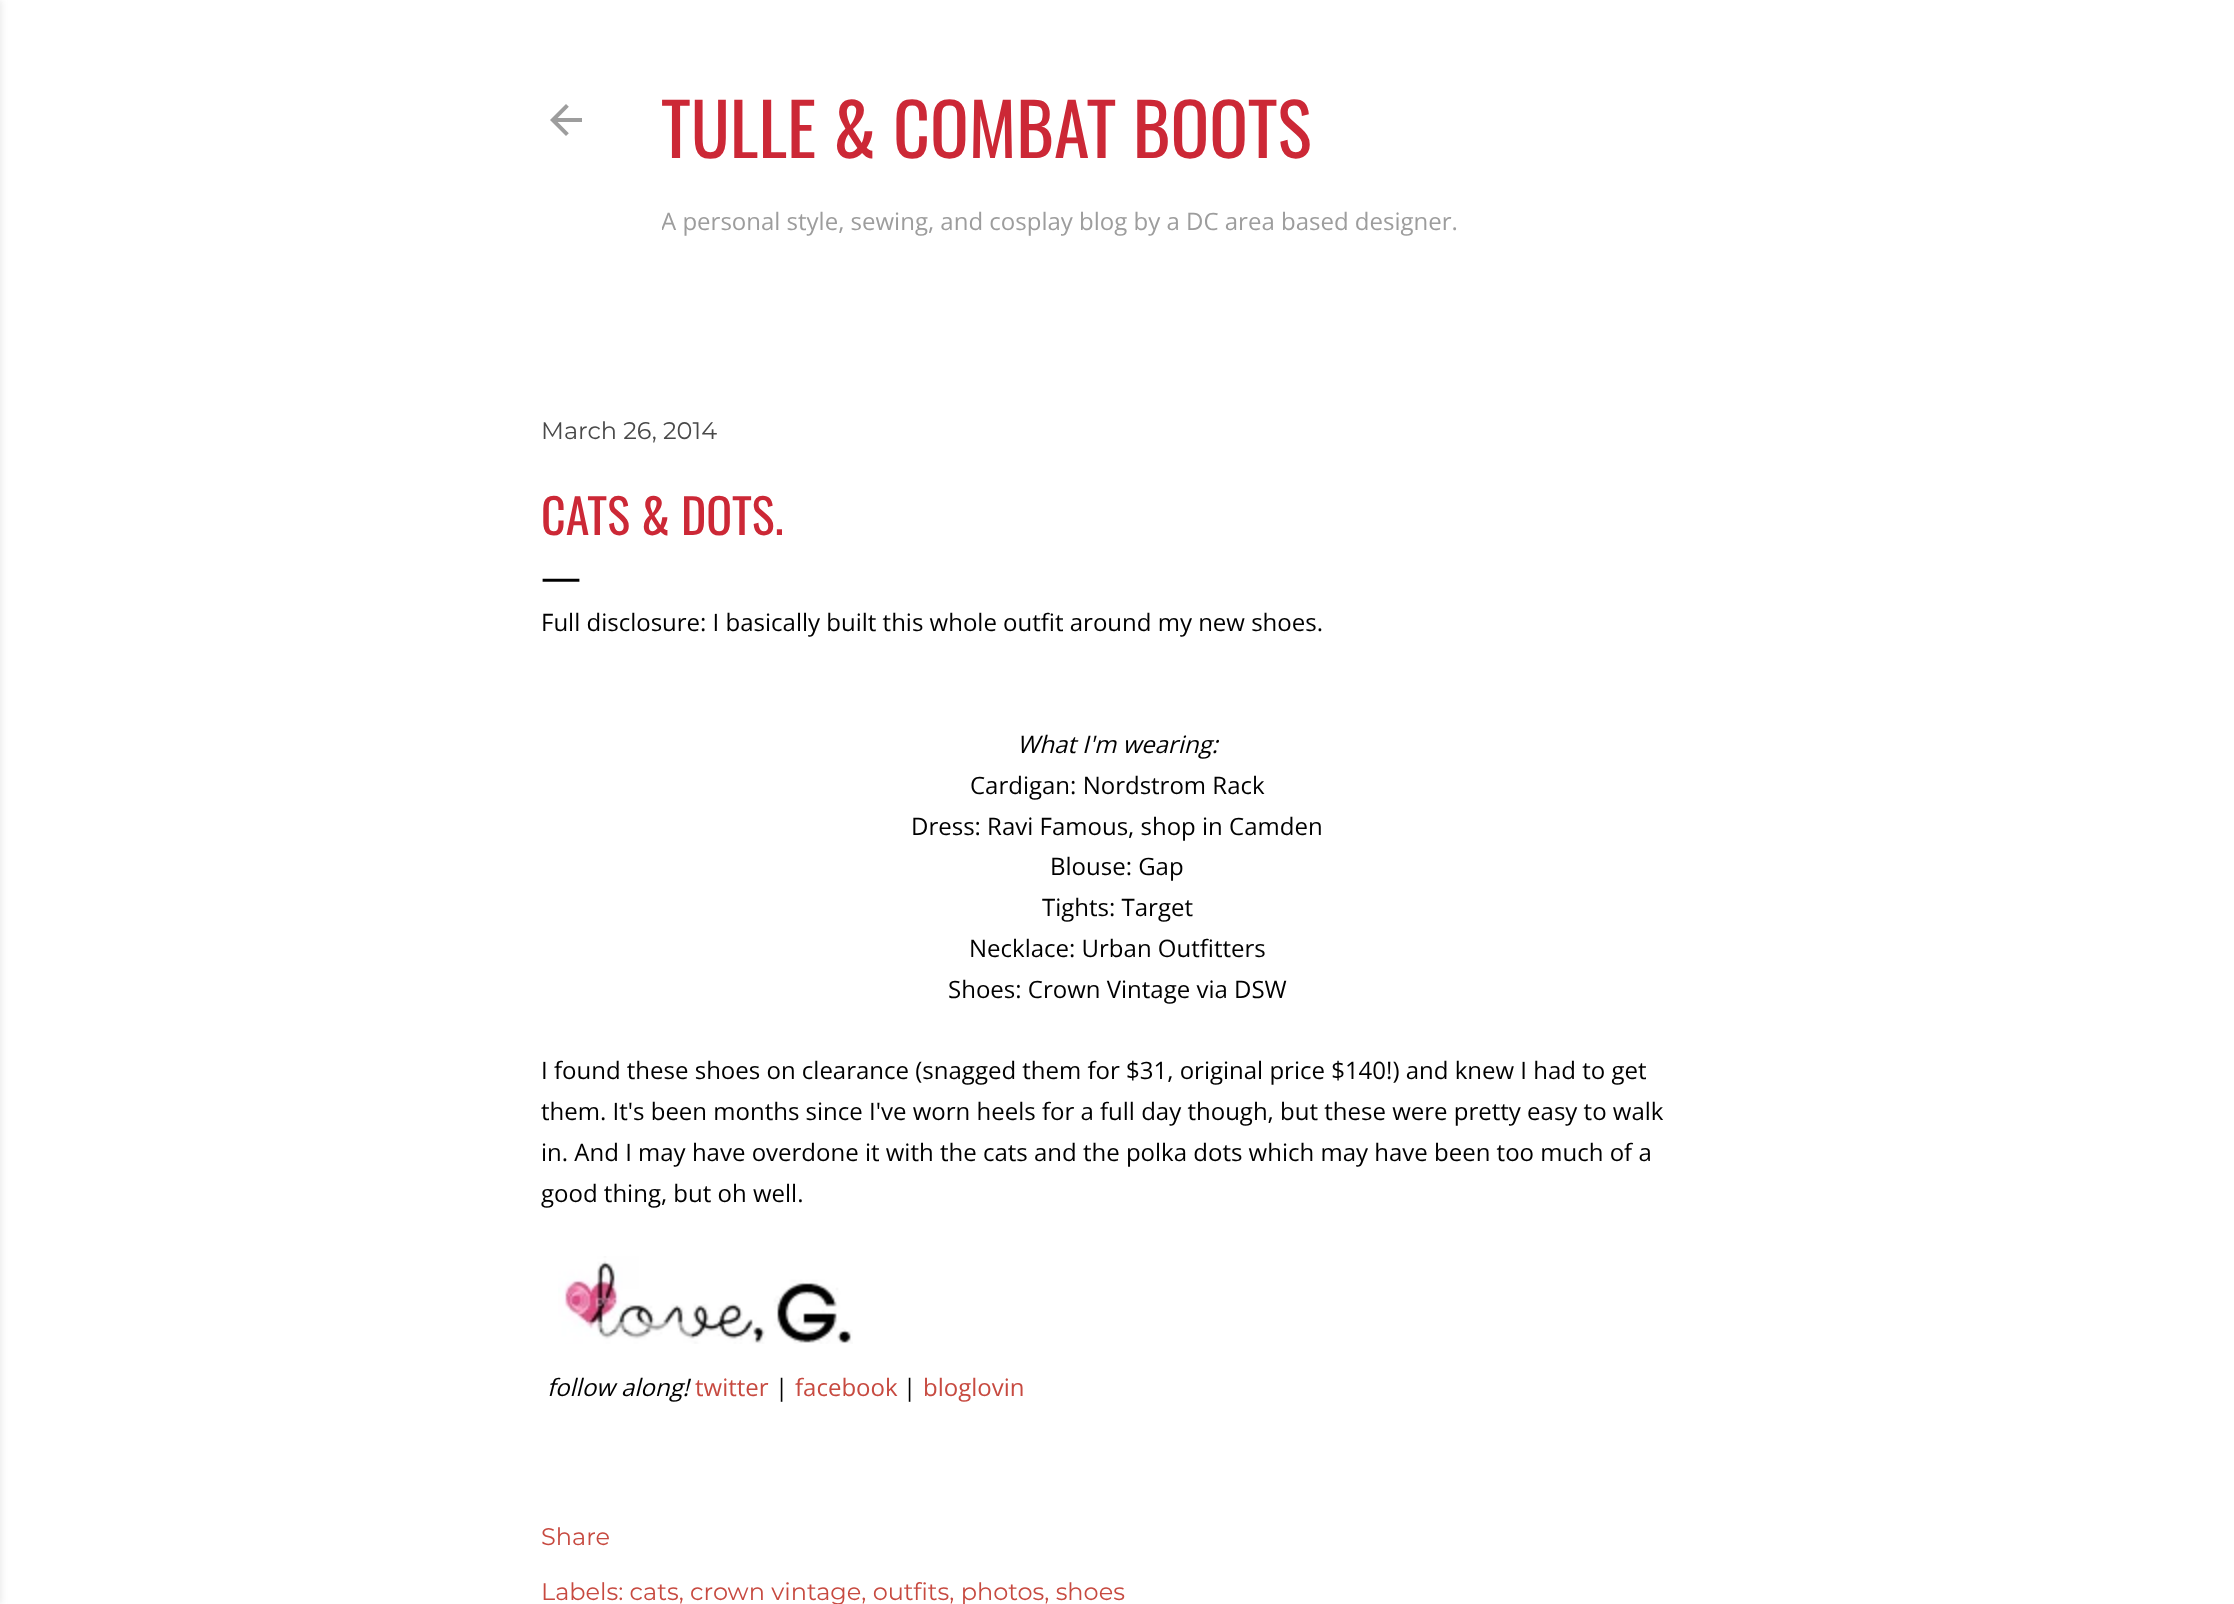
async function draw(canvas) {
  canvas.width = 2234
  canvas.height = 1604
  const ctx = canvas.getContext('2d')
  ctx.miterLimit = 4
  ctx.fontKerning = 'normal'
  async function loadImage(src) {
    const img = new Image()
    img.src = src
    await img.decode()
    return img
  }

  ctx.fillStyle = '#fff'
  ctx.fillRect(0, 0, 2234, 1604)
  ctx.fillStyle = '#4949491a'
  ctx.filter = 'blur(3px)'
  ctx.beginPath()
  ctx.rect(-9, 0, 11, 1604)
  ctx.fill()
  ctx.filter = 'none'
  ctx.drawImage(await loadImage('image0.png'), 550, 104, 32, 32)
  ctx.font = '72px Oswald'
  ctx.fillStyle = '#cc2836'
  ctx.fillText('TULLE & COMBAT BOOTS', 661, 158)
  ctx.save()
  ctx.beginPath()
  ctx.rect(662, 72, 1032, 194)
  ctx.clip()
  ctx.font = '24px Open Sans'
  ctx.fillStyle = '#9d9d9d'
  ctx.fillText('A personal style, sewing, and cosplay blog by a DC area based designer.', 661, 230)
  ctx.restore()
  ctx.font = '24px Montserrat'
  ctx.fillStyle = '#494949'
  ctx.fillText('March 26, 2014', 541, 439)
  ctx.font = '48px Oswald'
  ctx.fillStyle = '#cc2836'
  ctx.fillText('CATS & DOTS.', 541, 535)
  ctx.font = '40px Open Sans'
  ctx.fillStyle = '#000'
  ctx.fillText('—', 541, 591)
  ctx.font = '24px Open Sans'
  ctx.fillText('Full disclosure: I basically built this whole outfit around my new shoes.', 541, 631)
  ctx.font = 'italic 24px Open Sans'
  ctx.fillText('What I\'m wearing:', 1017, 753)
  ctx.font = '24px Open Sans'
  ctx.fillText('Cardigan: Nordstrom Rack', 970, 794)
  ctx.fillText('Dress: Ravi Famous, shop in Camden', 911, 835)
  ctx.fillText('Blouse: Gap', 1050, 875)
  ctx.fillText('Tights: Target', 1042, 916)
  ctx.fillText('Necklace: Urban Outfitters', 969, 957)
  ctx.fillText('Shoes: Crown Vintage via DSW', 948, 998)
  ctx.fillText('I found these shoes on clearance (snagged them for $31, original price $140!) and knew I had to get', 541, 1079)
  ctx.fillText('them. It\'s been months since I\'ve worn heels for a full day though, but these were pretty easy to walk', 541, 1120)
  ctx.fillText('in. And I may have overdone it with the cats and the polka dots which may have been too much of a', 541, 1161)
  ctx.fillText('good thing, but oh well.', 541, 1202)
  ctx.drawImage(await loadImage('image1.png'), 558, 1256, 295, 88)
  ctx.font = 'italic 24px Open Sans'
  ctx.fillText('follow along!', 547, 1396)
  ctx.font = '24px Open Sans'
  ctx.fillStyle = '#c74a40'
  ctx.fillText('twitter', 695, 1396)
  ctx.fillStyle = '#000'
  ctx.fillText('|', 775, 1396)
  ctx.fillStyle = '#c74a40'
  ctx.fillText('facebook', 795, 1396)
  ctx.fillStyle = '#000'
  ctx.fillText('|', 903, 1396)
  ctx.fillStyle = '#c74a40'
  ctx.fillText('bloglovin', 923, 1396)
  ctx.font = '24px Montserrat'
  ctx.fillText('Share', 541, 1545)
  ctx.fillText('Labels: cats, crown vintage, outfits, photos, shoes', 541, 1600)
}

draw(document.querySelector('canvas'))
